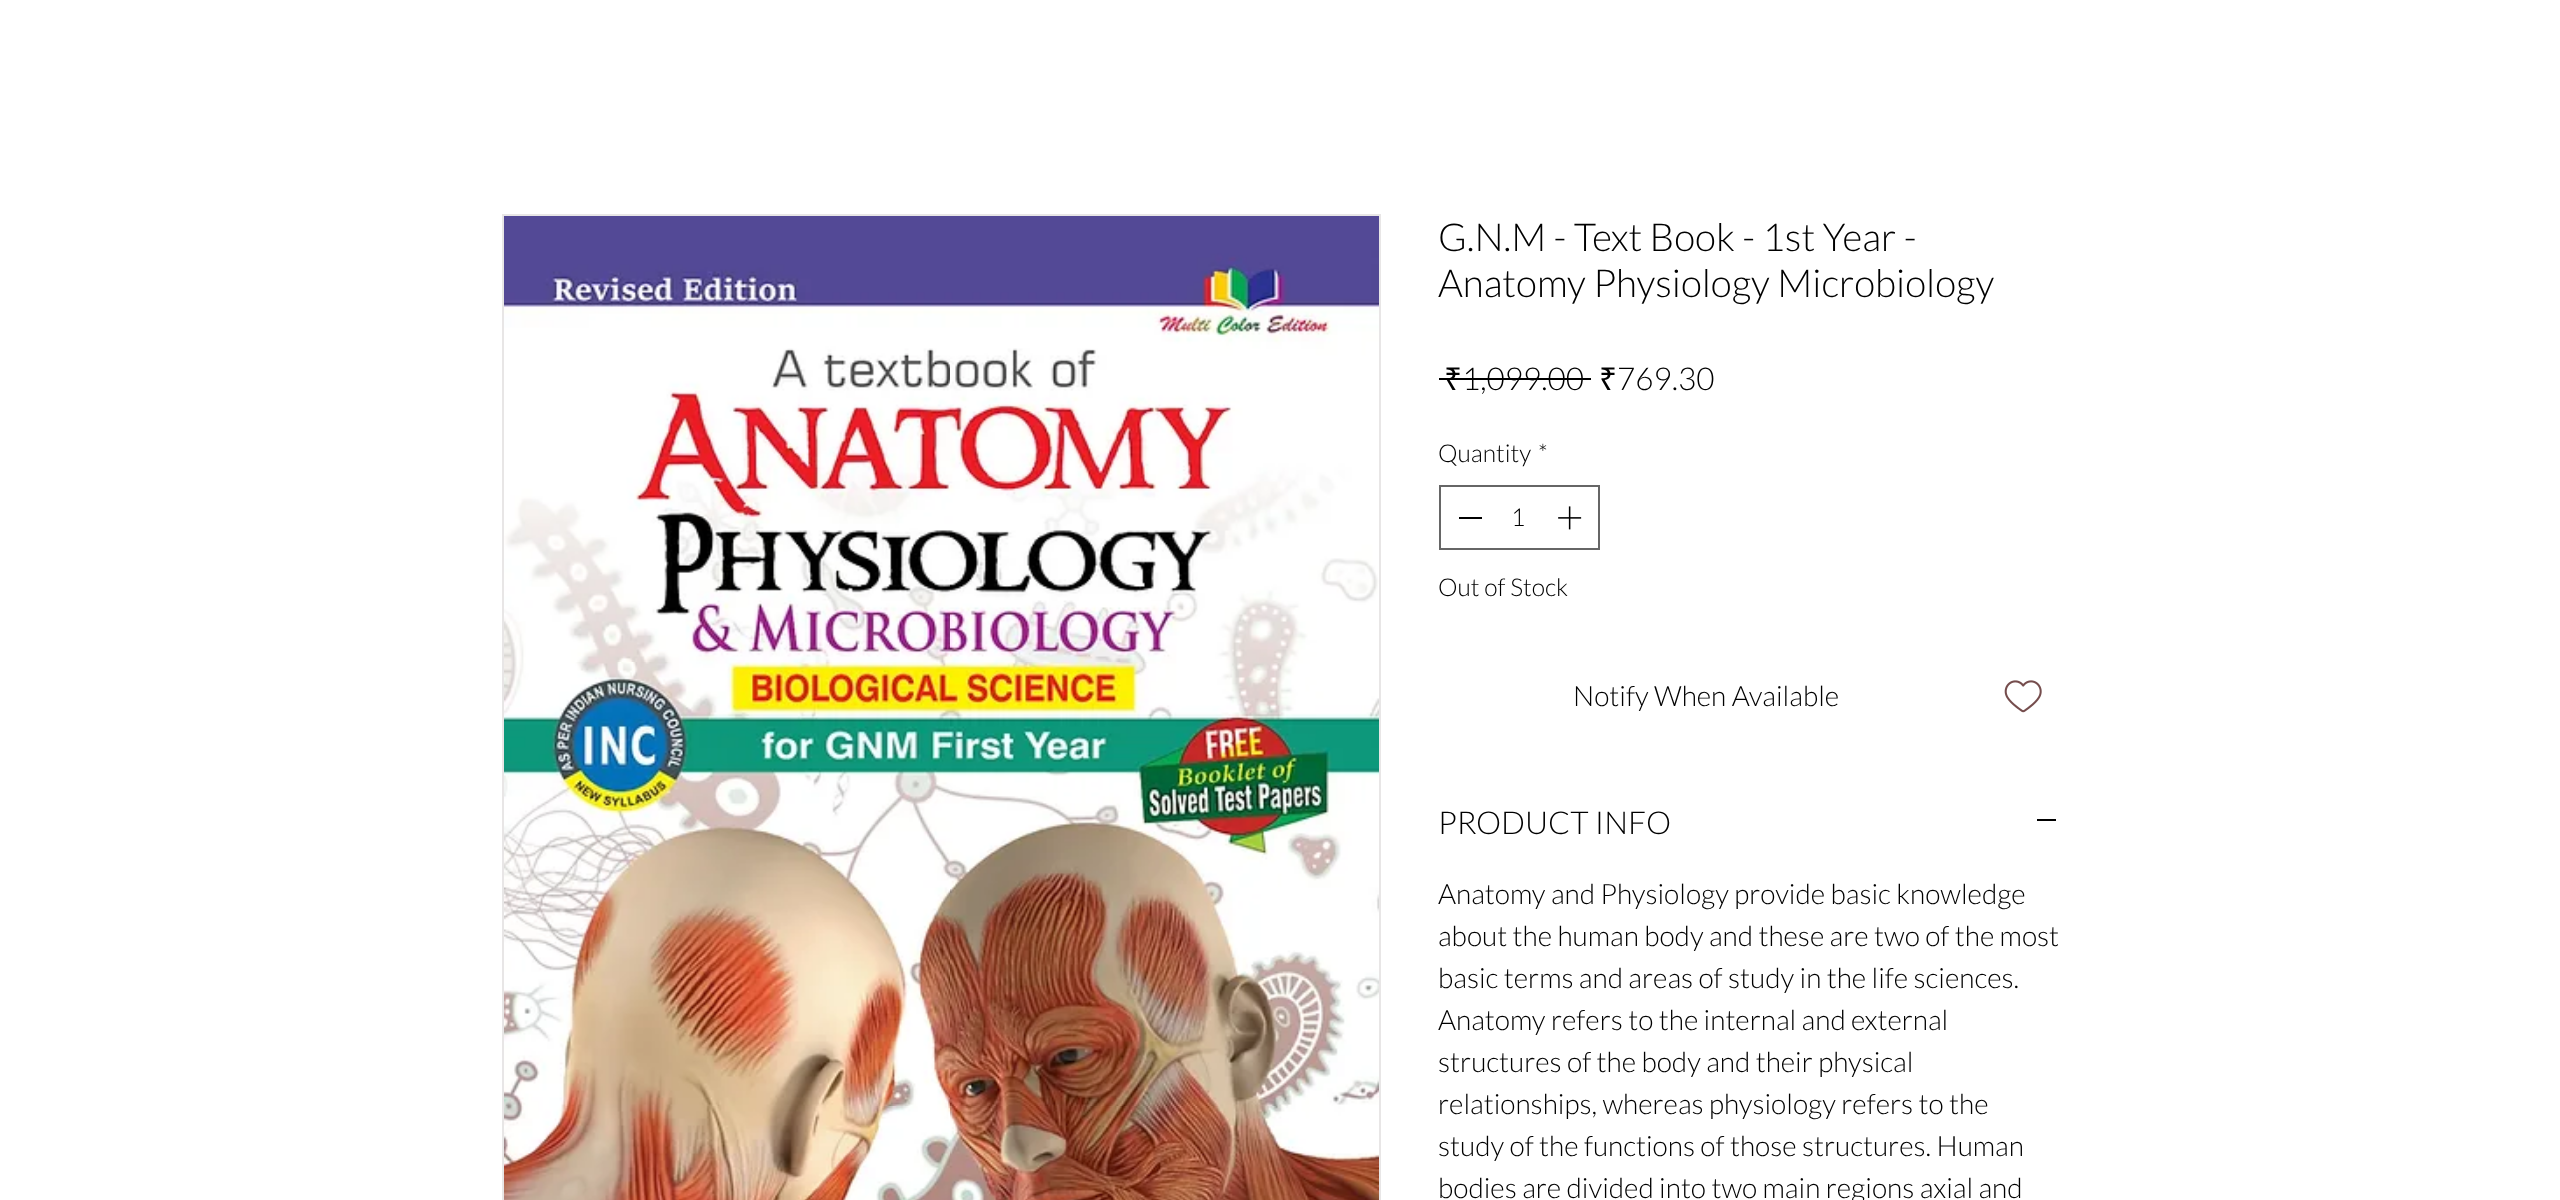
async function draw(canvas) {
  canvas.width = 2560
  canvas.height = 1200
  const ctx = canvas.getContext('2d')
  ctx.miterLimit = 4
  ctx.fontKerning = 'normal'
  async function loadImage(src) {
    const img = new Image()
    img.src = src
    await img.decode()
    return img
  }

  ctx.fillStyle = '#fff'
  ctx.fillRect(0, 0, 2560, 1200)
  ctx.strokeStyle = '#e8e6e6'
  ctx.lineWidth = 2
  ctx.strokeRect(503, 215, 877, 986)
  ctx.drawImage(await loadImage('image0.png'), 504, 216, 875, 984)
  ctx.font = '300 38.5px Lato'
  ctx.fillStyle = '#000'
  ctx.fillText('G.N.M - Text Book - 1st Year -', 1438, 251)
  ctx.fillText('Anatomy Physiology Microbiology', 1438, 297)
  ctx.font = '31.5px Noto Sans'
  ctx.fillText('₹', 1444, 390)
  ctx.fillRect(1439, 378, 152, 2)
  ctx.font = '300 31.5px Lato'
  ctx.fillText('1,099.00', 1462, 390)
  ctx.font = '31.5px Noto Sans'
  ctx.fillText('₹', 1599, 390)
  ctx.font = '300 31.5px Lato'
  ctx.fillText('769.30', 1617, 390)
  ctx.font = '300 24.5px Lato'
  ctx.fillText('Quantity', 1438, 462)
  ctx.fillText('*', 1538, 462)
  ctx.strokeStyle = '#666'
  ctx.strokeRect(1440, 486, 159, 63)
  ctx.fillRect(1459, 517, 23, 2)
  ctx.fillText('1', 1511, 526)
  ctx.drawImage(await loadImage('image1.png'), 1558, 506, 24, 24)
  ctx.fillText('Out of Stock', 1438, 596)
  ctx.font = '300 28px Lato'
  ctx.fillText('Notify When Available', 1573, 706)
  ctx.drawImage(await loadImage('image2.png'), 2004, 680, 38, 33)
  ctx.font = '300 31.5px Lato'
  ctx.fillText('PRODUCT INFO', 1438, 834)
  ctx.fillRect(2037, 819, 19, 2)
  ctx.font = '300 28px Lato'
  ctx.fillText('Anatomy and Physiology provide basic knowledge', 1438, 904)
  ctx.fillText('about the human body and these are two of the most', 1438, 946)
  ctx.fillText('basic terms and areas of study in the life sciences.', 1438, 988)
  ctx.fillText('Anatomy refers to the internal and external', 1438, 1030)
  ctx.fillText('structures of the body and their physical', 1438, 1072)
  ctx.fillText('relationships, whereas physiology refers to the', 1438, 1114)
  ctx.fillText('study of the functions of those structures. Human', 1438, 1156)
  ctx.fillText('bodies are divided into two main regions axial and', 1438, 1198)
}

draw(document.querySelector('canvas'))
